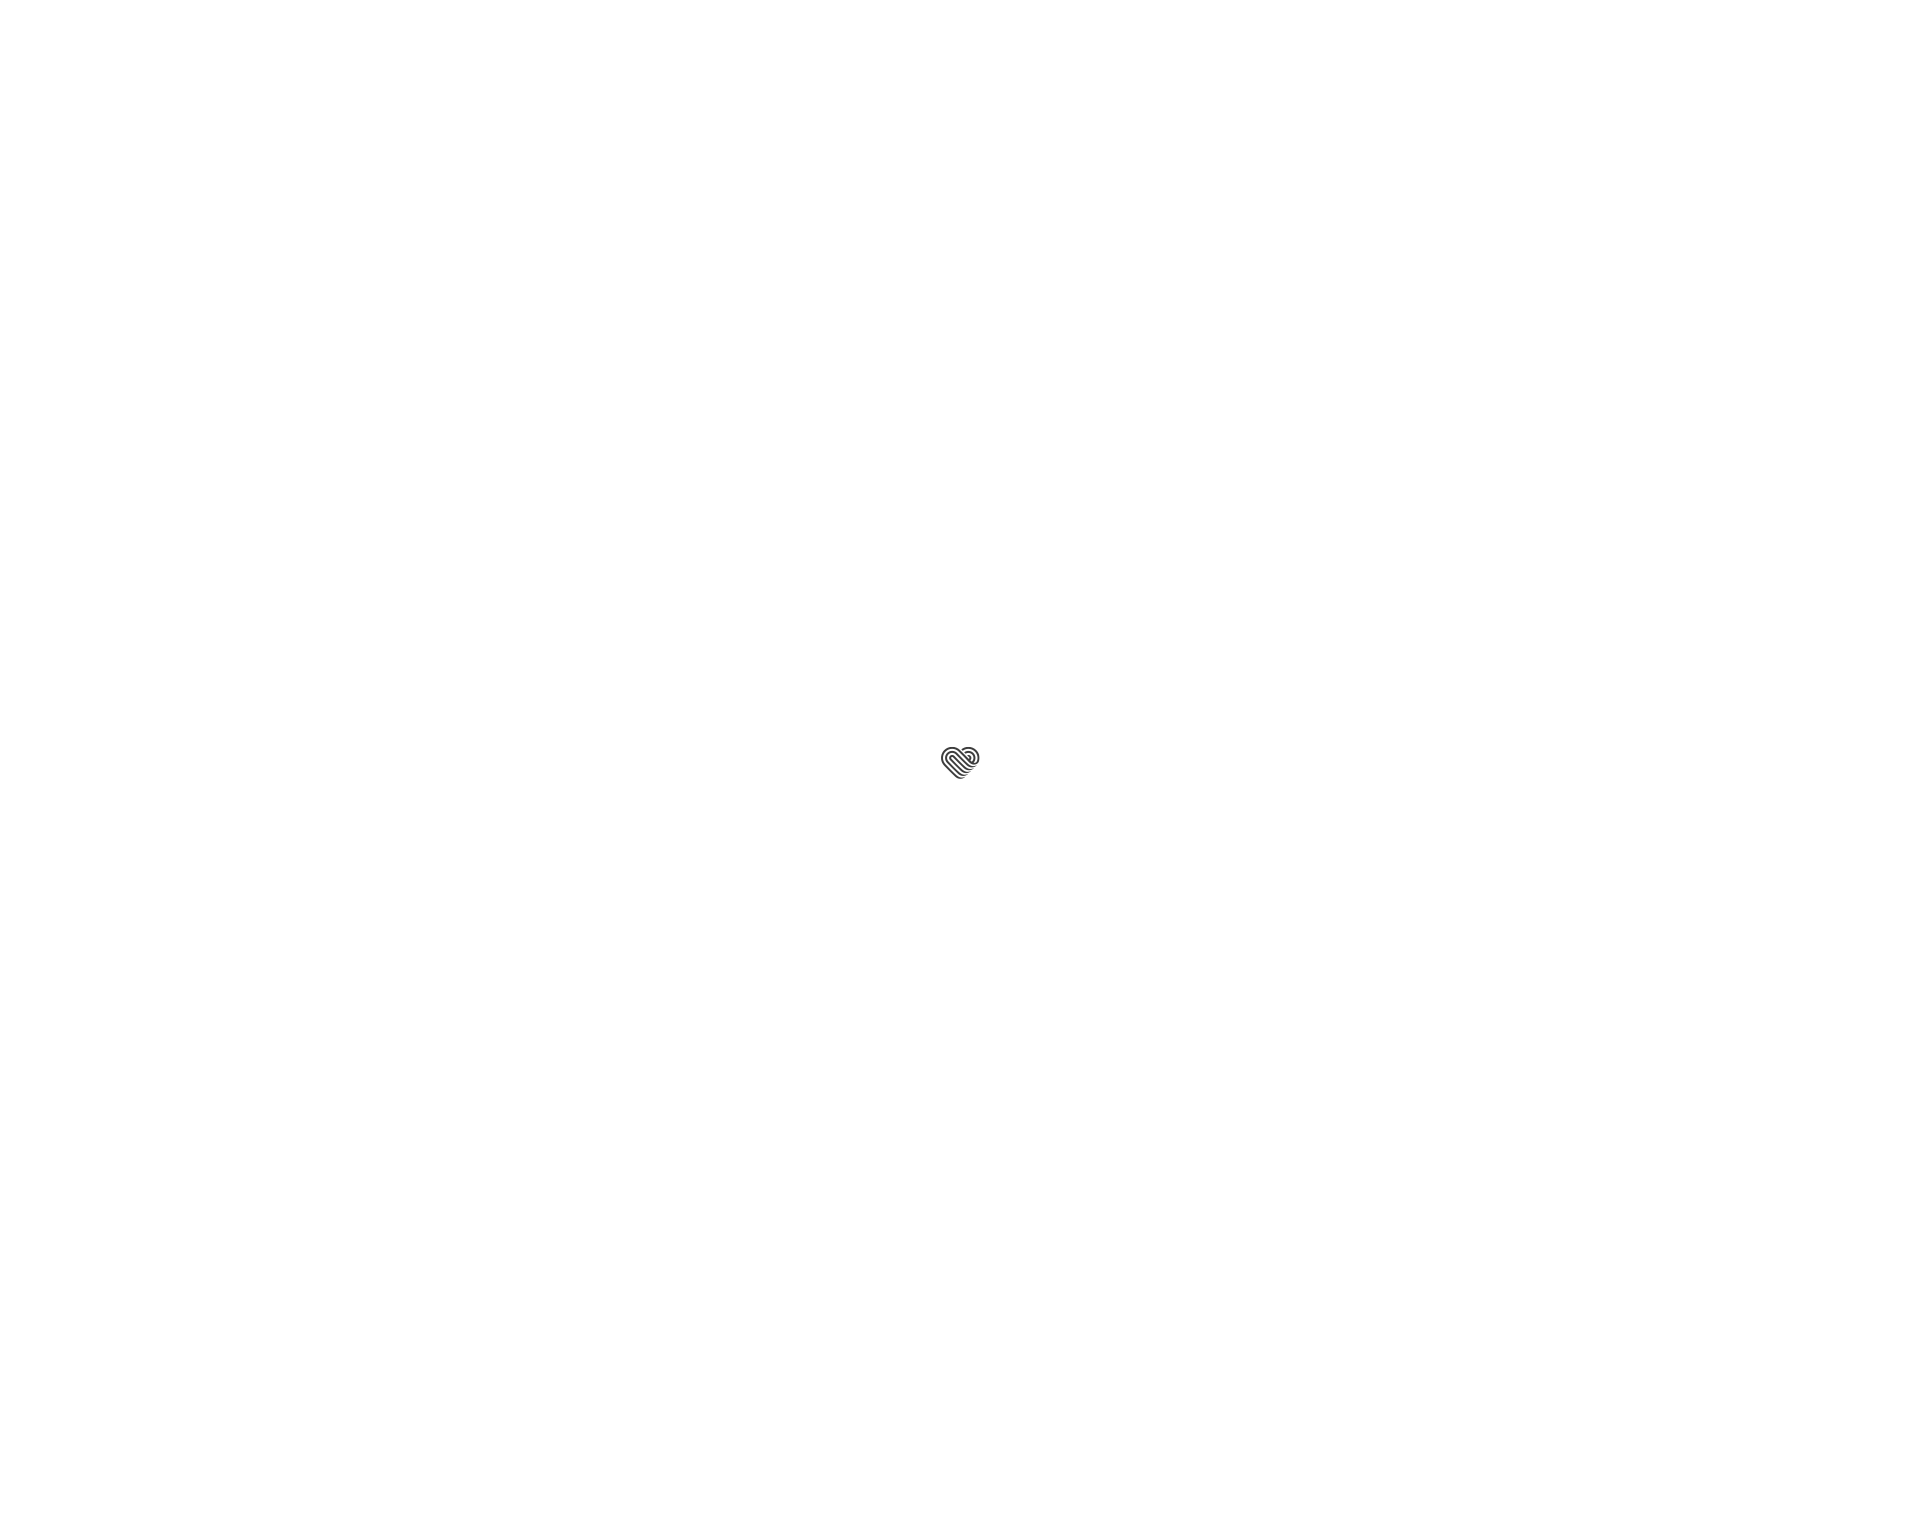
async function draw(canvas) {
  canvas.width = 1921
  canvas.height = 1525
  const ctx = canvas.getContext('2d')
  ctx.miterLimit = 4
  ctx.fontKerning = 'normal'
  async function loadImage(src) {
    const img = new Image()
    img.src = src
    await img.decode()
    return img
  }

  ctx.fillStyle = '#fff'
  ctx.fillRect(0, 0, 1921, 1525)
  ctx.drawImage(await loadImage('image0.png'), 941, 746, 39, 33)
}

draw(document.querySelector('canvas'))
